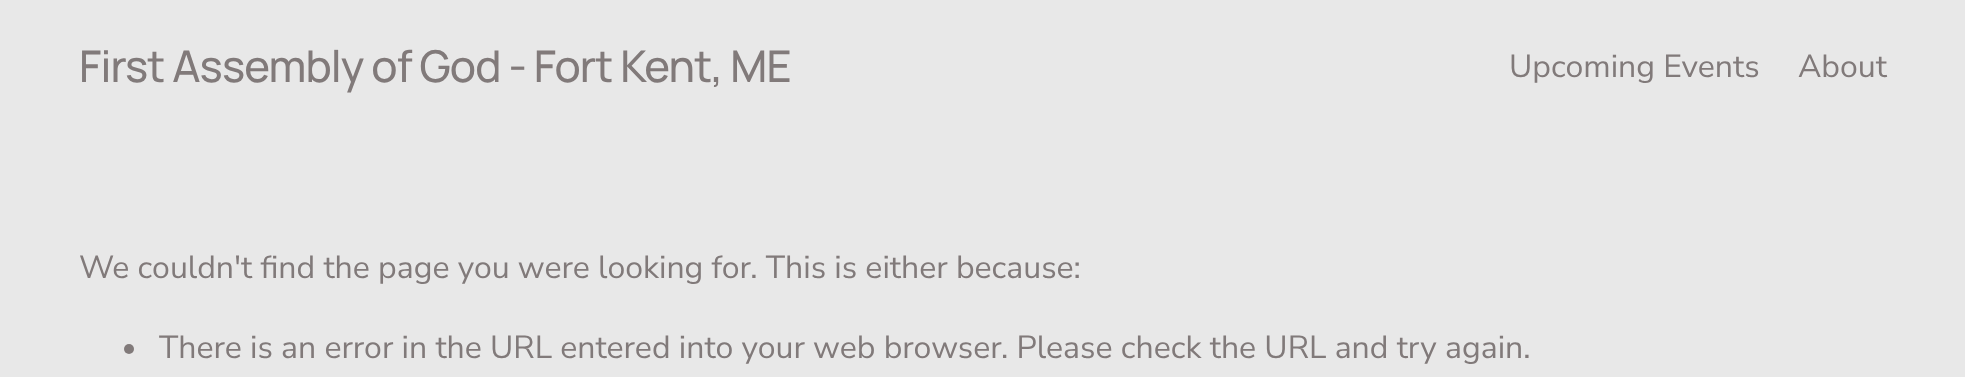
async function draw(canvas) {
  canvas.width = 1965
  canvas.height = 377
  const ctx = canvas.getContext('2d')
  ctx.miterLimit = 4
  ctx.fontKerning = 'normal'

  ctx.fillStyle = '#e8e8e8'
  ctx.fillRect(0, 0, 1965, 377)
  ctx.letterSpacing = '-0.9px'
  ctx.font = '500 43.75px Manrope'
  ctx.fillStyle = '#817a7a'
  ctx.fillText('First Assembly of God - Fort Kent, ME', 79, 82)
  ctx.letterSpacing = '0px'
  ctx.font = '32px Nunito Sans'
  ctx.fillText('Upcoming Events', 1509, 77)
  ctx.fillText('About', 1798, 77)
  ctx.fillText('We couldn\'t find the page you were looking for. This is either because:', 79, 278)
  ctx.beginPath()
  ctx.arc(129, 349, 5, 0, 2 * Math.PI)
  ctx.fill()
  ctx.fillText('There is an error in the URL entered into your web browser. Please check the URL and try again.', 159, 358)
}

draw(document.querySelector('canvas'))
